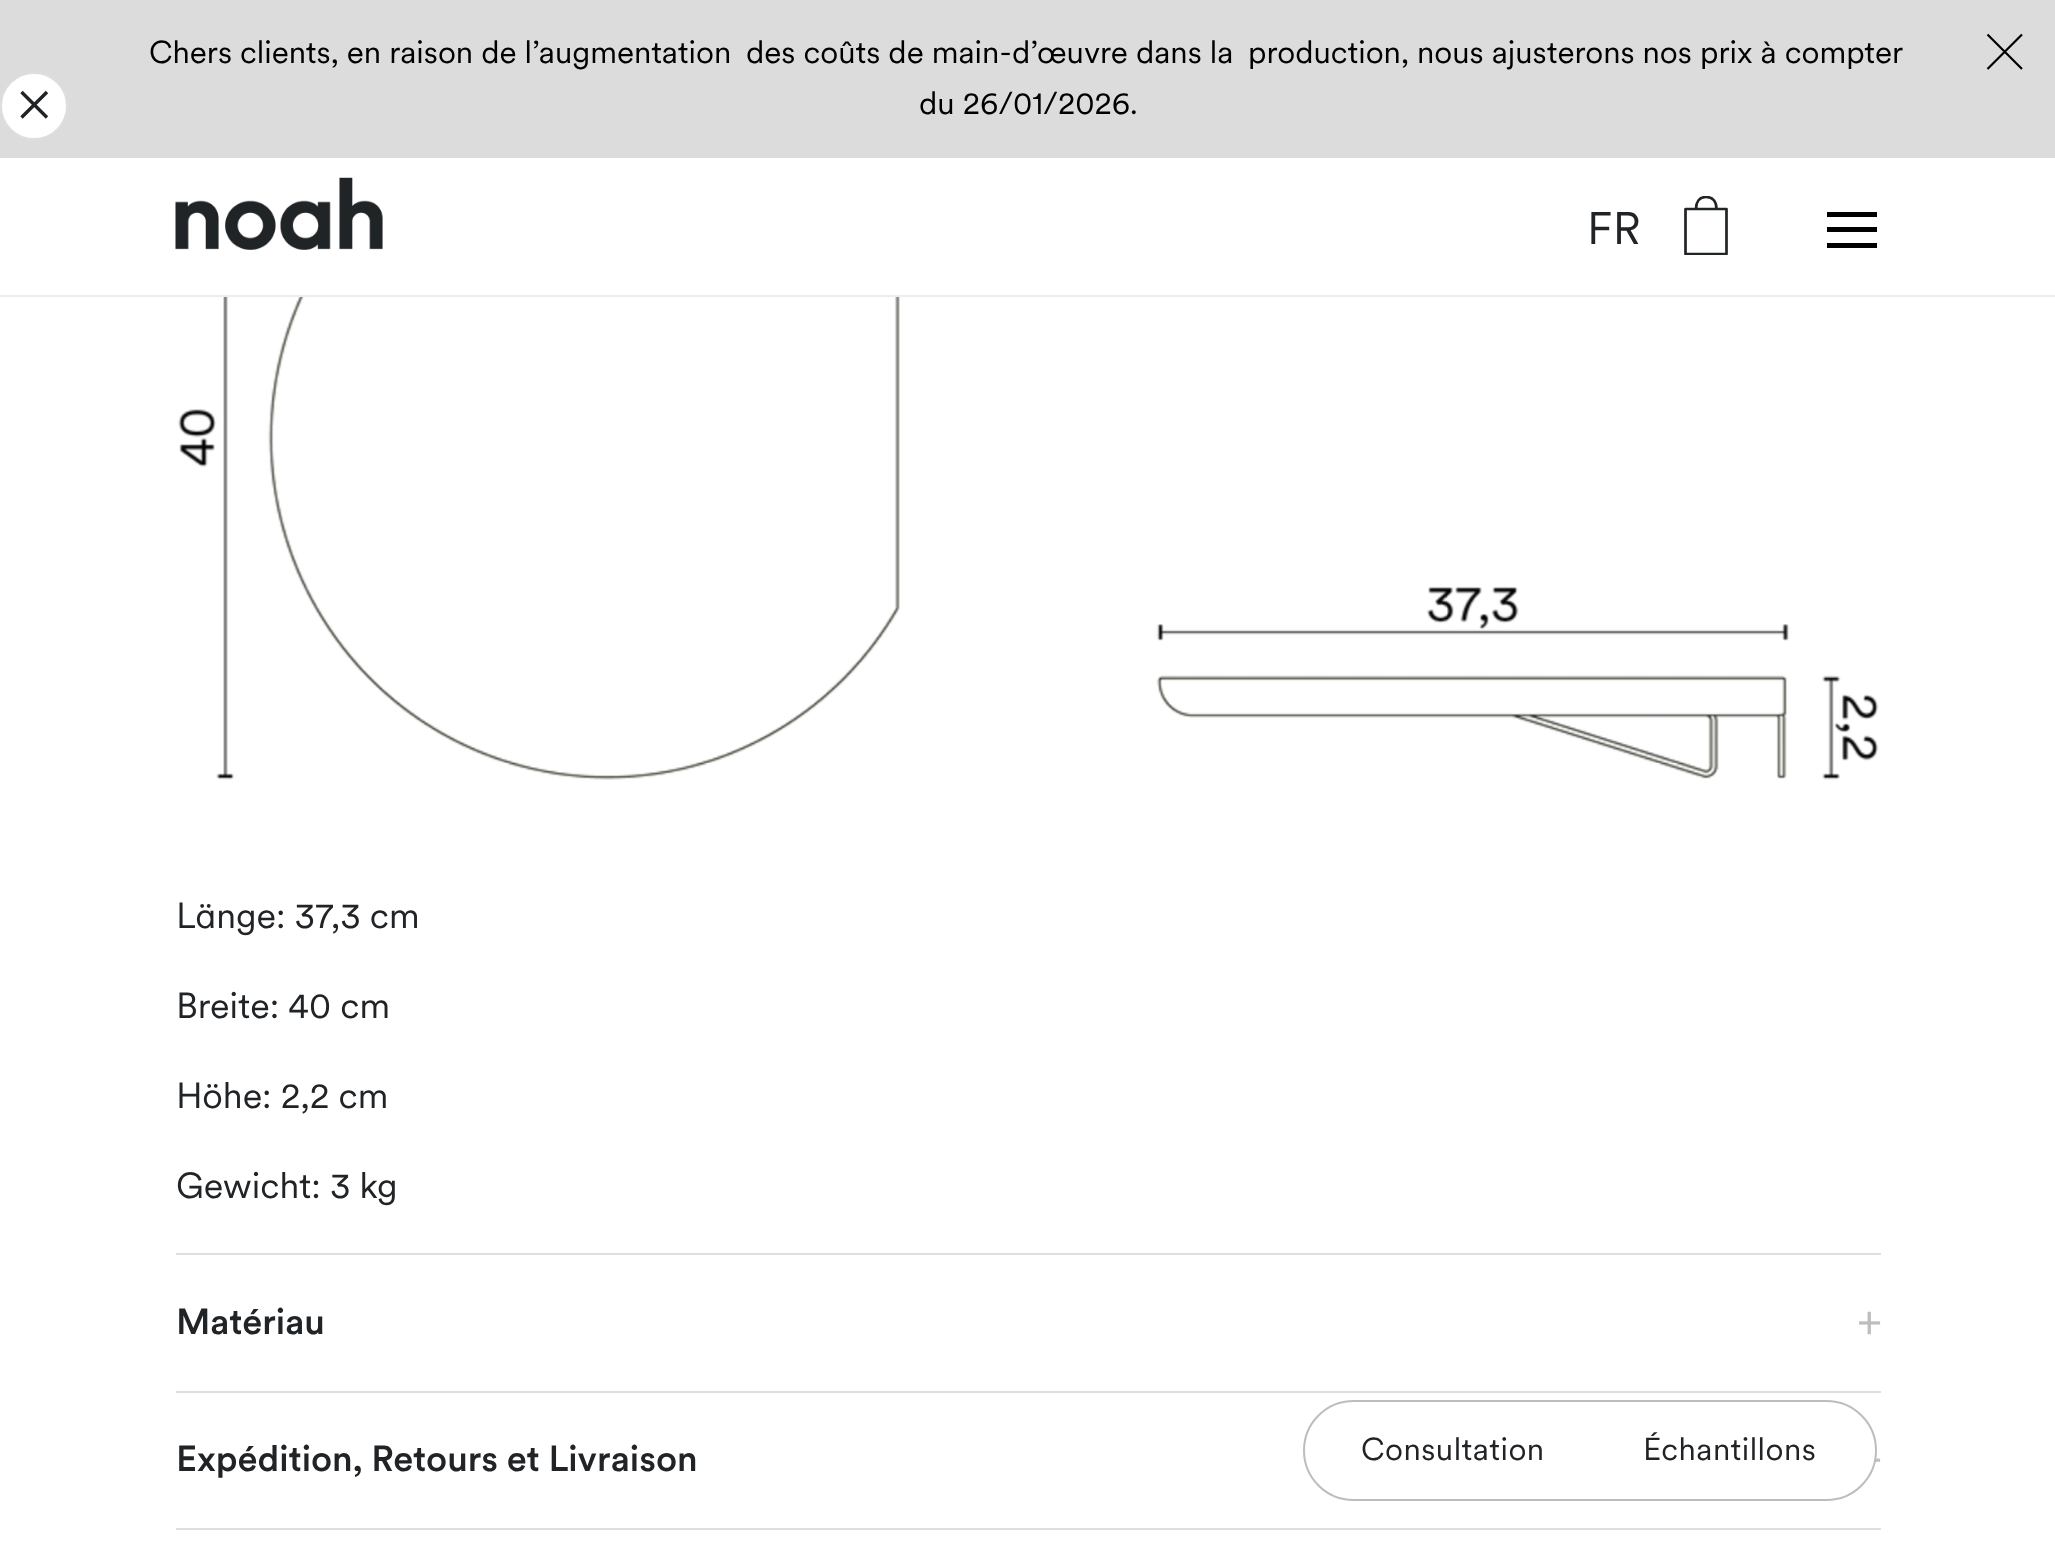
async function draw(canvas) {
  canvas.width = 2055
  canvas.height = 1567
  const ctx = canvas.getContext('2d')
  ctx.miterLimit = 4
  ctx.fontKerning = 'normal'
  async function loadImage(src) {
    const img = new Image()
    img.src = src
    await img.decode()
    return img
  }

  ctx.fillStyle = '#fff'
  ctx.fillRect(0, 0, 2055, 1567)
  ctx.fillStyle = '#dcdcdc'
  ctx.fillRect(0, 0, 2055, 158)
  ctx.font = '31.5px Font'
  ctx.fillStyle = '#000'
  ctx.fillText('Chers clients, en raison de l’augmentation', 149, 63)
  ctx.fillText('des coûts de main-d’œuvre dans la', 746, 63)
  ctx.fillText('production, nous ajusterons nos prix à compter', 1248, 63)
  ctx.fillText('du 26/01/2026.', 919, 114)
  ctx.beginPath()
  ctx.moveTo(1987.5, 34.5)
  ctx.lineTo(2022, 69)
  ctx.moveTo(2022, 34.5)
  ctx.lineTo(1987.5, 69)
  ctx.strokeStyle = '#000'
  ctx.lineWidth = 2.2
  ctx.stroke()
  ctx.fillStyle = '#ededee'
  ctx.fillRect(0, 295, 2055, 2)
  ctx.drawImage(await loadImage('image0.png'), 175, 177, 208, 73)
  ctx.fillStyle = '#fff'
  ctx.beginPath()
  ctx.arc(34, 106, 33, 0, 2 * Math.PI)
  ctx.fill()
  ctx.strokeStyle = '#dededf'
  ctx.lineWidth = 2
  ctx.stroke()
  ctx.beginPath()
  ctx.moveTo(21.5, 117.5)
  ctx.lineTo(47, 92)
  ctx.moveTo(21.5, 92)
  ctx.lineTo(47, 117.5)
  ctx.strokeStyle = '#212427'
  ctx.lineWidth = 3.4
  ctx.stroke()
  ctx.font = '45px Font'
  ctx.fillStyle = '#212427'
  ctx.fillText('FR', 1587, 244)
  ctx.save()
  ctx.beginPath()
  ctx.rect(1684, 196, 44, 59)
  ctx.clip()
  ctx.beginPath()
  ctx.moveTo(1726.5, 209)
  ctx.lineTo(1685.5, 209)
  ctx.lineTo(1685.5, 254)
  ctx.lineTo(1726.5, 254)
  ctx.closePath()
  ctx.moveTo(1706, 197)
  ctx.bezierCurveTo(1699, 197, 1696, 202.5, 1696, 209)
  ctx.lineTo(1716.5, 209)
  ctx.bezierCurveTo(1716.5, 202.5, 1713.5, 197, 1706, 197)
  ctx.closePath()
  ctx.lineWidth = 2.7
  ctx.lineJoin = 'round'
  ctx.stroke()
  ctx.restore()
  ctx.fillStyle = '#000'
  ctx.fillRect(1827, 227, 50, 5)
  ctx.fillRect(1827, 212, 50, 5)
  ctx.fillRect(1827, 243, 50, 5)
  ctx.drawImage(await loadImage('image1.png'), 178, 297, 1701, 483)
  ctx.font = '36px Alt'
  ctx.fillStyle = '#212427'
  ctx.fillText('Länge: 37,3 cm', 176, 928)
  ctx.font = '36px Font'
  ctx.fillText('Breite: 40 cm', 176, 1018)
  ctx.fillText('Höhe: 2,2 cm', 176, 1108)
  ctx.fillText('Gewicht: 3 kg', 176, 1198)
  ctx.fillStyle = '#dededf'
  ctx.fillRect(176, 1253, 1705, 2)
  ctx.font = '500 36px Font'
  ctx.fillStyle = '#212427'
  ctx.fillText('Matériau', 176, 1334)
  ctx.drawImage(await loadImage('image2.png'), 1859, 1311, 22, 24)
  ctx.fillStyle = '#dededf'
  ctx.fillRect(176, 1391, 1705, 2)
  ctx.fillStyle = '#212427'
  ctx.fillText('Expédition, Retours et Livraison', 176, 1471)
  ctx.drawImage(await loadImage('image3.png'), 1875, 1458, 6, 4)
  ctx.fillStyle = '#dededf'
  ctx.fillRect(176, 1528, 1705, 2)
  ctx.fillStyle = '#fff'
  ctx.beginPath()
  ctx.roundRect(1303, 1400, 574, 101, 50.5)
  ctx.fill()
  ctx.beginPath()
  ctx.roundRect(1304, 1401, 572, 99, 49.5)
  ctx.strokeStyle = '#2124274d'
  ctx.lineWidth = 2
  ctx.stroke()
  ctx.letterSpacing = '0.5px'
  ctx.font = '31.5px Font'
  ctx.fillStyle = '#212427'
  ctx.fillText('Consultation', 1361, 1460)
  ctx.fillText('Échantillons', 1643, 1460)
}

draw(document.querySelector('canvas'))
